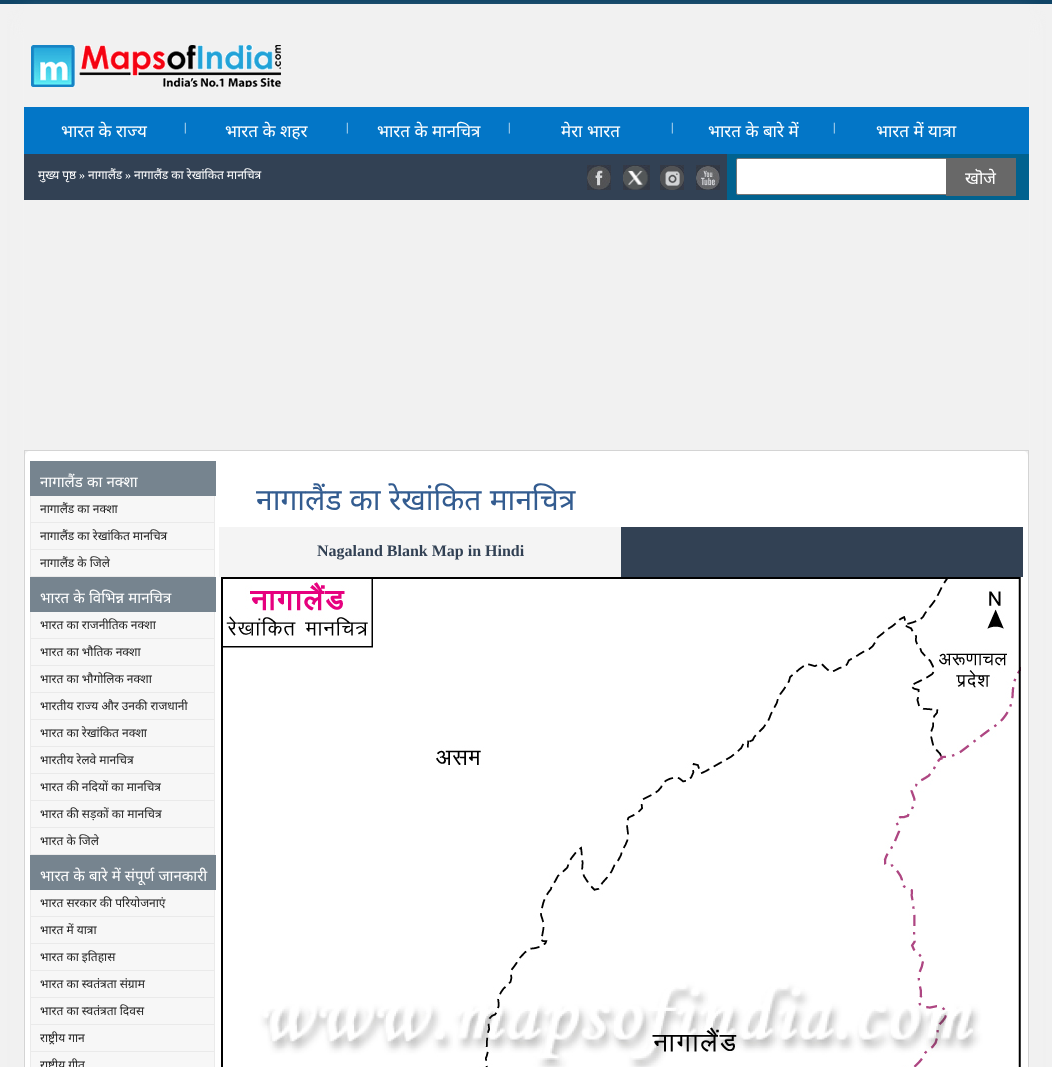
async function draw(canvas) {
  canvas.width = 1052
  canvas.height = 1067
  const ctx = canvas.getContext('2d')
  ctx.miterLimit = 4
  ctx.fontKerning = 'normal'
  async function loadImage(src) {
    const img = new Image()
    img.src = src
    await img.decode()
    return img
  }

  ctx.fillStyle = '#f1f1f1'
  ctx.fillRect(0, 0, 1052, 1067)
  ctx.fillStyle = '#0f4466'
  ctx.fillRect(0, 0, 1052, 4)
  ctx.save()
  ctx.beginPath()
  ctx.moveTo(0, 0)
  ctx.lineTo(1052, 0)
  ctx.lineTo(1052, 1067)
  ctx.lineTo(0, 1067)
  ctx.closePath()
  ctx.moveTo(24, 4)
  ctx.lineTo(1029, 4)
  ctx.lineTo(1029, 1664)
  ctx.lineTo(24, 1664)
  ctx.closePath()
  ctx.clip('evenodd')
  ctx.fillStyle = '#f1f1f1'
  ctx.filter = 'blur(10px)'
  ctx.beginPath()
  ctx.rect(24, 19, 1005, 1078)
  ctx.fill()
  ctx.filter = 'none'
  ctx.restore()
  ctx.drawImage(await loadImage('image0.png'), 31, 45, 250, 42)
  ctx.fillStyle = '#0376c7'
  ctx.fillRect(24, 107, 1005, 47)
  ctx.font = '17px Noto Sans'
  ctx.fillStyle = '#fff'
  ctx.fillText('भारत के राज्य', 61, 137)
  ctx.font = '12px Liberation Serif'
  ctx.fillText('|', 184, 131)
  ctx.font = '17px Noto Sans'
  ctx.fillText('भारत के शहर', 225, 137)
  ctx.font = '12px Liberation Serif'
  ctx.fillText('|', 346, 131)
  ctx.font = '17px Noto Sans'
  ctx.fillText('भारत के मानचित्र', 377, 137)
  ctx.font = '12px Liberation Serif'
  ctx.fillText('|', 508, 131)
  ctx.font = '17px Noto Sans'
  ctx.fillText('मेरा भारत', 561, 137)
  ctx.font = '12px Liberation Serif'
  ctx.fillText('|', 671, 131)
  ctx.font = '17px Noto Sans'
  ctx.fillText('भारत के बारे में', 708, 137)
  ctx.font = '12px Liberation Serif'
  ctx.fillText('|', 833, 131)
  ctx.font = '17px Noto Sans'
  ctx.fillText('भारत में यात्रा', 876, 137)
  ctx.fillStyle = '#324154'
  ctx.fillRect(24, 154, 703, 46)
  ctx.font = '12px Noto Sans'
  ctx.fillStyle = '#fff'
  ctx.fillText('मुख्य पृष्ठ', 38, 179)
  ctx.font = '12px Liberation Serif'
  ctx.fillText('»', 79, 179)
  ctx.font = '12px Noto Sans'
  ctx.fillText('नागालैंड', 88, 179)
  ctx.font = '12px Liberation Serif'
  ctx.fillText('»', 125, 179)
  ctx.font = '12px Noto Sans'
  ctx.fillText('नागालैंड का रेखांकित मानचित्र', 134, 179)
  ctx.drawImage(await loadImage('image1.png'), 587, 165, 24, 25)
  ctx.drawImage(await loadImage('image2.png'), 623, 165, 27, 25)
  ctx.drawImage(await loadImage('image3.png'), 660, 165, 24, 25)
  ctx.drawImage(await loadImage('image4.png'), 696, 165, 24, 25)
  ctx.fillStyle = '#01628f'
  ctx.fillRect(727, 154, 302, 46)
  ctx.fillStyle = '#fff'
  ctx.beginPath()
  ctx.roundRect(736.5, 158.5, 212, 36, 1.5)
  ctx.fill()
  ctx.strokeStyle = '#767676'
  ctx.stroke()
  ctx.fillStyle = '#686868'
  ctx.fillRect(946, 158, 70, 38)
  ctx.font = '17px Noto Sans'
  ctx.fillStyle = '#fff'
  ctx.fillText('खॊजे', 965, 184)
  ctx.strokeStyle = '#d4d4d4'
  ctx.strokeRect(24.5, 450.5, 1004, 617)
  ctx.beginPath()
  ctx.roundRect(25, 451, 1003, 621, 5)
  ctx.fill()
  ctx.fillStyle = '#76848f'
  ctx.fillRect(30, 461, 186, 35)
  ctx.wordSpacing = '0.25px'
  ctx.font = '15px Noto Sans'
  ctx.fillStyle = '#fff'
  ctx.fillText('नागालैंड का नक्शा', 40, 487)
  ctx.fillStyle = '#f7f7f7'
  ctx.fillRect(31, 496, 183, 80)
  ctx.fillStyle = '#eaeaea'
  ctx.fillRect(214, 496, 1, 81)
  ctx.fillRect(30, 522, 185, 1)
  ctx.fillRect(30, 496, 1, 27)
  ctx.wordSpacing = '0px'
  ctx.font = '12px Noto Sans'
  ctx.fillStyle = '#242424'
  ctx.fillText('नागालैंड का नक्शा', 40, 513)
  ctx.fillStyle = '#eaeaea'
  ctx.fillRect(30, 549, 185, 1)
  ctx.fillRect(30, 523, 1, 27)
  ctx.fillStyle = '#242424'
  ctx.fillText('नागालैंड का रेखांकित मानचित्र', 40, 540)
  ctx.fillStyle = '#eaeaea'
  ctx.fillRect(30, 576, 185, 1)
  ctx.fillRect(30, 550, 1, 27)
  ctx.fillStyle = '#242424'
  ctx.fillText('नागालैंड के जिले', 40, 567)
  ctx.fillStyle = '#76848f'
  ctx.fillRect(30, 577, 186, 35)
  ctx.wordSpacing = '0.25px'
  ctx.font = '15px Noto Sans'
  ctx.fillStyle = '#fff'
  ctx.fillText('भारत के विभिन्न मानचित्र', 40, 603)
  ctx.fillStyle = '#f7f7f7'
  ctx.fillRect(31, 612, 183, 242)
  ctx.fillStyle = '#eaeaea'
  ctx.fillRect(214, 612, 1, 243)
  ctx.fillRect(30, 638, 185, 1)
  ctx.fillRect(30, 612, 1, 27)
  ctx.wordSpacing = '0px'
  ctx.font = '12px Noto Sans'
  ctx.fillStyle = '#242424'
  ctx.fillText('भारत का राजनीतिक नक्शा', 40, 629)
  ctx.fillStyle = '#eaeaea'
  ctx.fillRect(30, 665, 185, 1)
  ctx.fillRect(30, 639, 1, 27)
  ctx.fillStyle = '#242424'
  ctx.fillText('भारत का भौतिक नक्शा', 40, 656)
  ctx.fillStyle = '#eaeaea'
  ctx.fillRect(30, 692, 185, 1)
  ctx.fillRect(30, 666, 1, 27)
  ctx.fillStyle = '#242424'
  ctx.fillText('भारत का भौगोलिक नक्शा', 40, 683)
  ctx.fillStyle = '#eaeaea'
  ctx.fillRect(30, 719, 185, 1)
  ctx.fillRect(30, 693, 1, 27)
  ctx.fillStyle = '#242424'
  ctx.fillText('भारतीय राज्य और उनकी राजधानी', 40, 710)
  ctx.fillStyle = '#eaeaea'
  ctx.fillRect(30, 746, 185, 1)
  ctx.fillRect(30, 720, 1, 27)
  ctx.fillStyle = '#242424'
  ctx.fillText('भारत का रेखांकित नक्शा', 40, 737)
  ctx.fillStyle = '#eaeaea'
  ctx.fillRect(30, 773, 185, 1)
  ctx.fillRect(30, 747, 1, 27)
  ctx.fillStyle = '#242424'
  ctx.fillText('भारतीय रेलवे मानचित्र', 40, 764)
  ctx.fillStyle = '#eaeaea'
  ctx.fillRect(30, 800, 185, 1)
  ctx.fillRect(30, 774, 1, 27)
  ctx.fillStyle = '#242424'
  ctx.fillText('भारत की नदियों का मानचित्र', 40, 791)
  ctx.fillStyle = '#eaeaea'
  ctx.fillRect(30, 827, 185, 1)
  ctx.fillRect(30, 801, 1, 27)
  ctx.fillStyle = '#242424'
  ctx.fillText('भारत की सड़कों का मानचित्र', 40, 818)
  ctx.fillStyle = '#eaeaea'
  ctx.fillRect(30, 854, 185, 1)
  ctx.fillRect(30, 828, 1, 27)
  ctx.fillStyle = '#242424'
  ctx.fillText('भारत के जिले', 40, 845)
  ctx.fillStyle = '#76848f'
  ctx.fillRect(30, 855, 186, 35)
  ctx.wordSpacing = '0.25px'
  ctx.font = '15px Noto Sans'
  ctx.fillStyle = '#fff'
  ctx.fillText('भारत के बारे में संपूर्ण जानकारी', 40, 881)
  ctx.fillStyle = '#f7f7f7'
  ctx.fillRect(31, 890, 183, 177)
  ctx.fillStyle = '#eaeaea'
  ctx.fillRect(214, 890, 1, 177)
  ctx.fillRect(30, 916, 185, 1)
  ctx.fillRect(30, 890, 1, 27)
  ctx.wordSpacing = '0px'
  ctx.font = '12px Noto Sans'
  ctx.fillStyle = '#242424'
  ctx.fillText('भारत सरकार की परियोजनाएं', 40, 907)
  ctx.fillStyle = '#eaeaea'
  ctx.fillRect(30, 943, 185, 1)
  ctx.fillRect(30, 917, 1, 27)
  ctx.fillStyle = '#242424'
  ctx.fillText('भारत में यात्रा', 40, 934)
  ctx.fillStyle = '#eaeaea'
  ctx.fillRect(30, 970, 185, 1)
  ctx.fillRect(30, 944, 1, 27)
  ctx.fillStyle = '#242424'
  ctx.fillText('भारत का इतिहास', 40, 961)
  ctx.fillStyle = '#eaeaea'
  ctx.fillRect(30, 997, 185, 1)
  ctx.fillRect(30, 971, 1, 27)
  ctx.fillStyle = '#242424'
  ctx.fillText('भारत का स्वतंत्रता संग्राम', 40, 988)
  ctx.fillStyle = '#eaeaea'
  ctx.fillRect(30, 1024, 185, 1)
  ctx.fillRect(30, 998, 1, 27)
  ctx.fillStyle = '#242424'
  ctx.fillText('भारत का स्वतंत्रता दिवस', 40, 1015)
  ctx.fillStyle = '#eaeaea'
  ctx.fillRect(30, 1051, 185, 1)
  ctx.fillRect(30, 1025, 1, 42)
  ctx.fillStyle = '#242424'
  ctx.fillText('राष्ट्रीय गान', 40, 1042)
  ctx.fillText('राष्ट्रीय गीत', 40, 1069)
  ctx.wordSpacing = '0.5px'
  ctx.font = '30px Noto Sans'
  ctx.fillStyle = '#335c90'
  ctx.fillText('नागालैंड का रेखांकित मानचित्र', 256, 510)
  ctx.fillStyle = '#f4f4f4'
  ctx.fillRect(219, 527, 402, 50)
  ctx.wordSpacing = '0px'
  ctx.font = 'bold 16px Liberation Serif'
  ctx.fillStyle = '#324154'
  ctx.fillText('Nagaland Blank Map in Hindi', 317, 556)
  ctx.fillRect(621, 527, 402, 50)
  ctx.drawImage(await loadImage('image5.png'), 221, 577, 800, 490)
}

draw(document.querySelector('canvas'))
